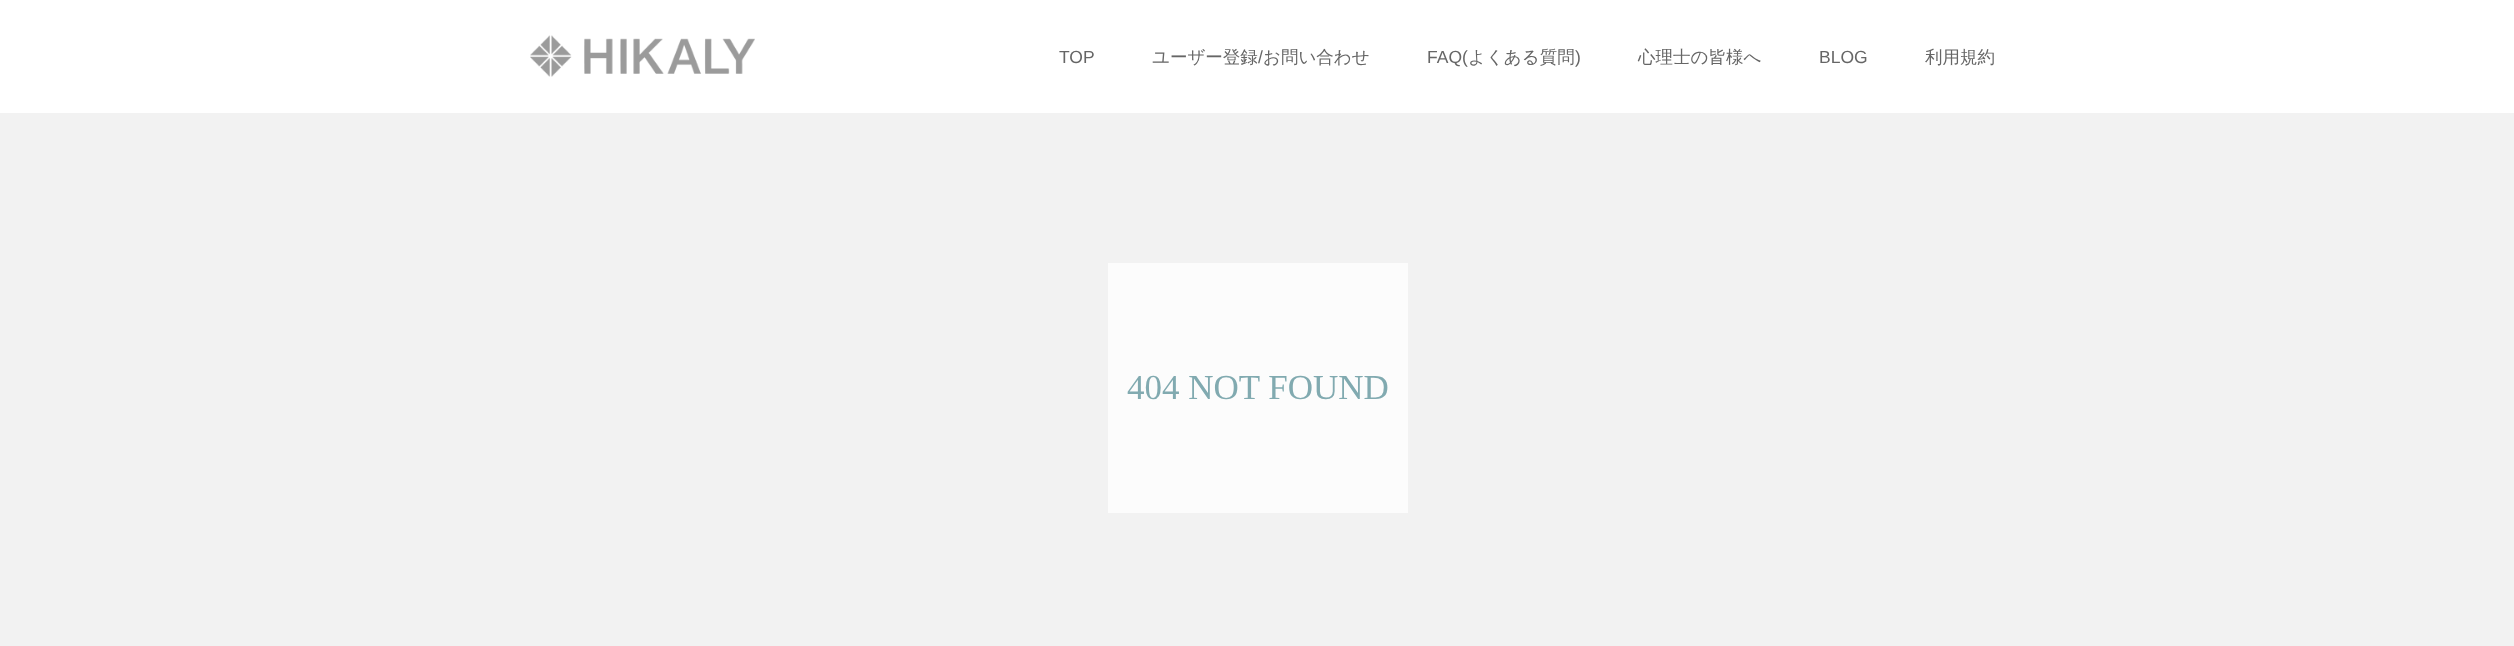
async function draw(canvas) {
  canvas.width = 2514
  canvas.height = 646
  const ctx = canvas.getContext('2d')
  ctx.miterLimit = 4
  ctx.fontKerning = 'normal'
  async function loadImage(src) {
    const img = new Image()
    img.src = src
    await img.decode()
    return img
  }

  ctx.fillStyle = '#fff'
  ctx.fillRect(0, 0, 2514, 646)
  ctx.drawImage(await loadImage('image0.png'), 530, 35, 225, 42)
  ctx.font = '17.5px Liberation Sans'
  ctx.fillStyle = '#666'
  ctx.fillText('TOP', 1059, 63)
  ctx.font = '500 17.5px WenQuanYi Zen Hei'
  ctx.fillText('ユーザー登録', 1152, 63)
  ctx.font = '17.5px Liberation Sans'
  ctx.fillText('/', 1258, 63)
  ctx.font = '500 17.5px WenQuanYi Zen Hei'
  ctx.fillText('お問い合わせ', 1263, 63)
  ctx.font = '17.5px Liberation Sans'
  ctx.fillText('FAQ(', 1427, 63)
  ctx.font = '500 17.5px WenQuanYi Zen Hei'
  ctx.fillText('よくある質問', 1468, 63)
  ctx.font = '17.5px Liberation Sans'
  ctx.fillText(')', 1575, 63)
  ctx.font = '500 17.5px WenQuanYi Zen Hei'
  ctx.fillText('心理士の皆様へ', 1638, 63)
  ctx.font = '17.5px Liberation Sans'
  ctx.fillText('BLOG', 1819, 63)
  ctx.font = '500 17.5px WenQuanYi Zen Hei'
  ctx.fillText('利用規約', 1925, 63)
  ctx.fillStyle = '#f2f2f2'
  ctx.fillRect(0, 113, 2514, 533)
  ctx.fillStyle = '#fcfcfc'
  ctx.fillRect(1108, 263, 300, 250)
  ctx.font = '35px Liberation Serif'
  ctx.fillStyle = '#81aab0'
  ctx.fillText('404 NOT FOUND', 1127, 399)
}

draw(document.querySelector('canvas'))
